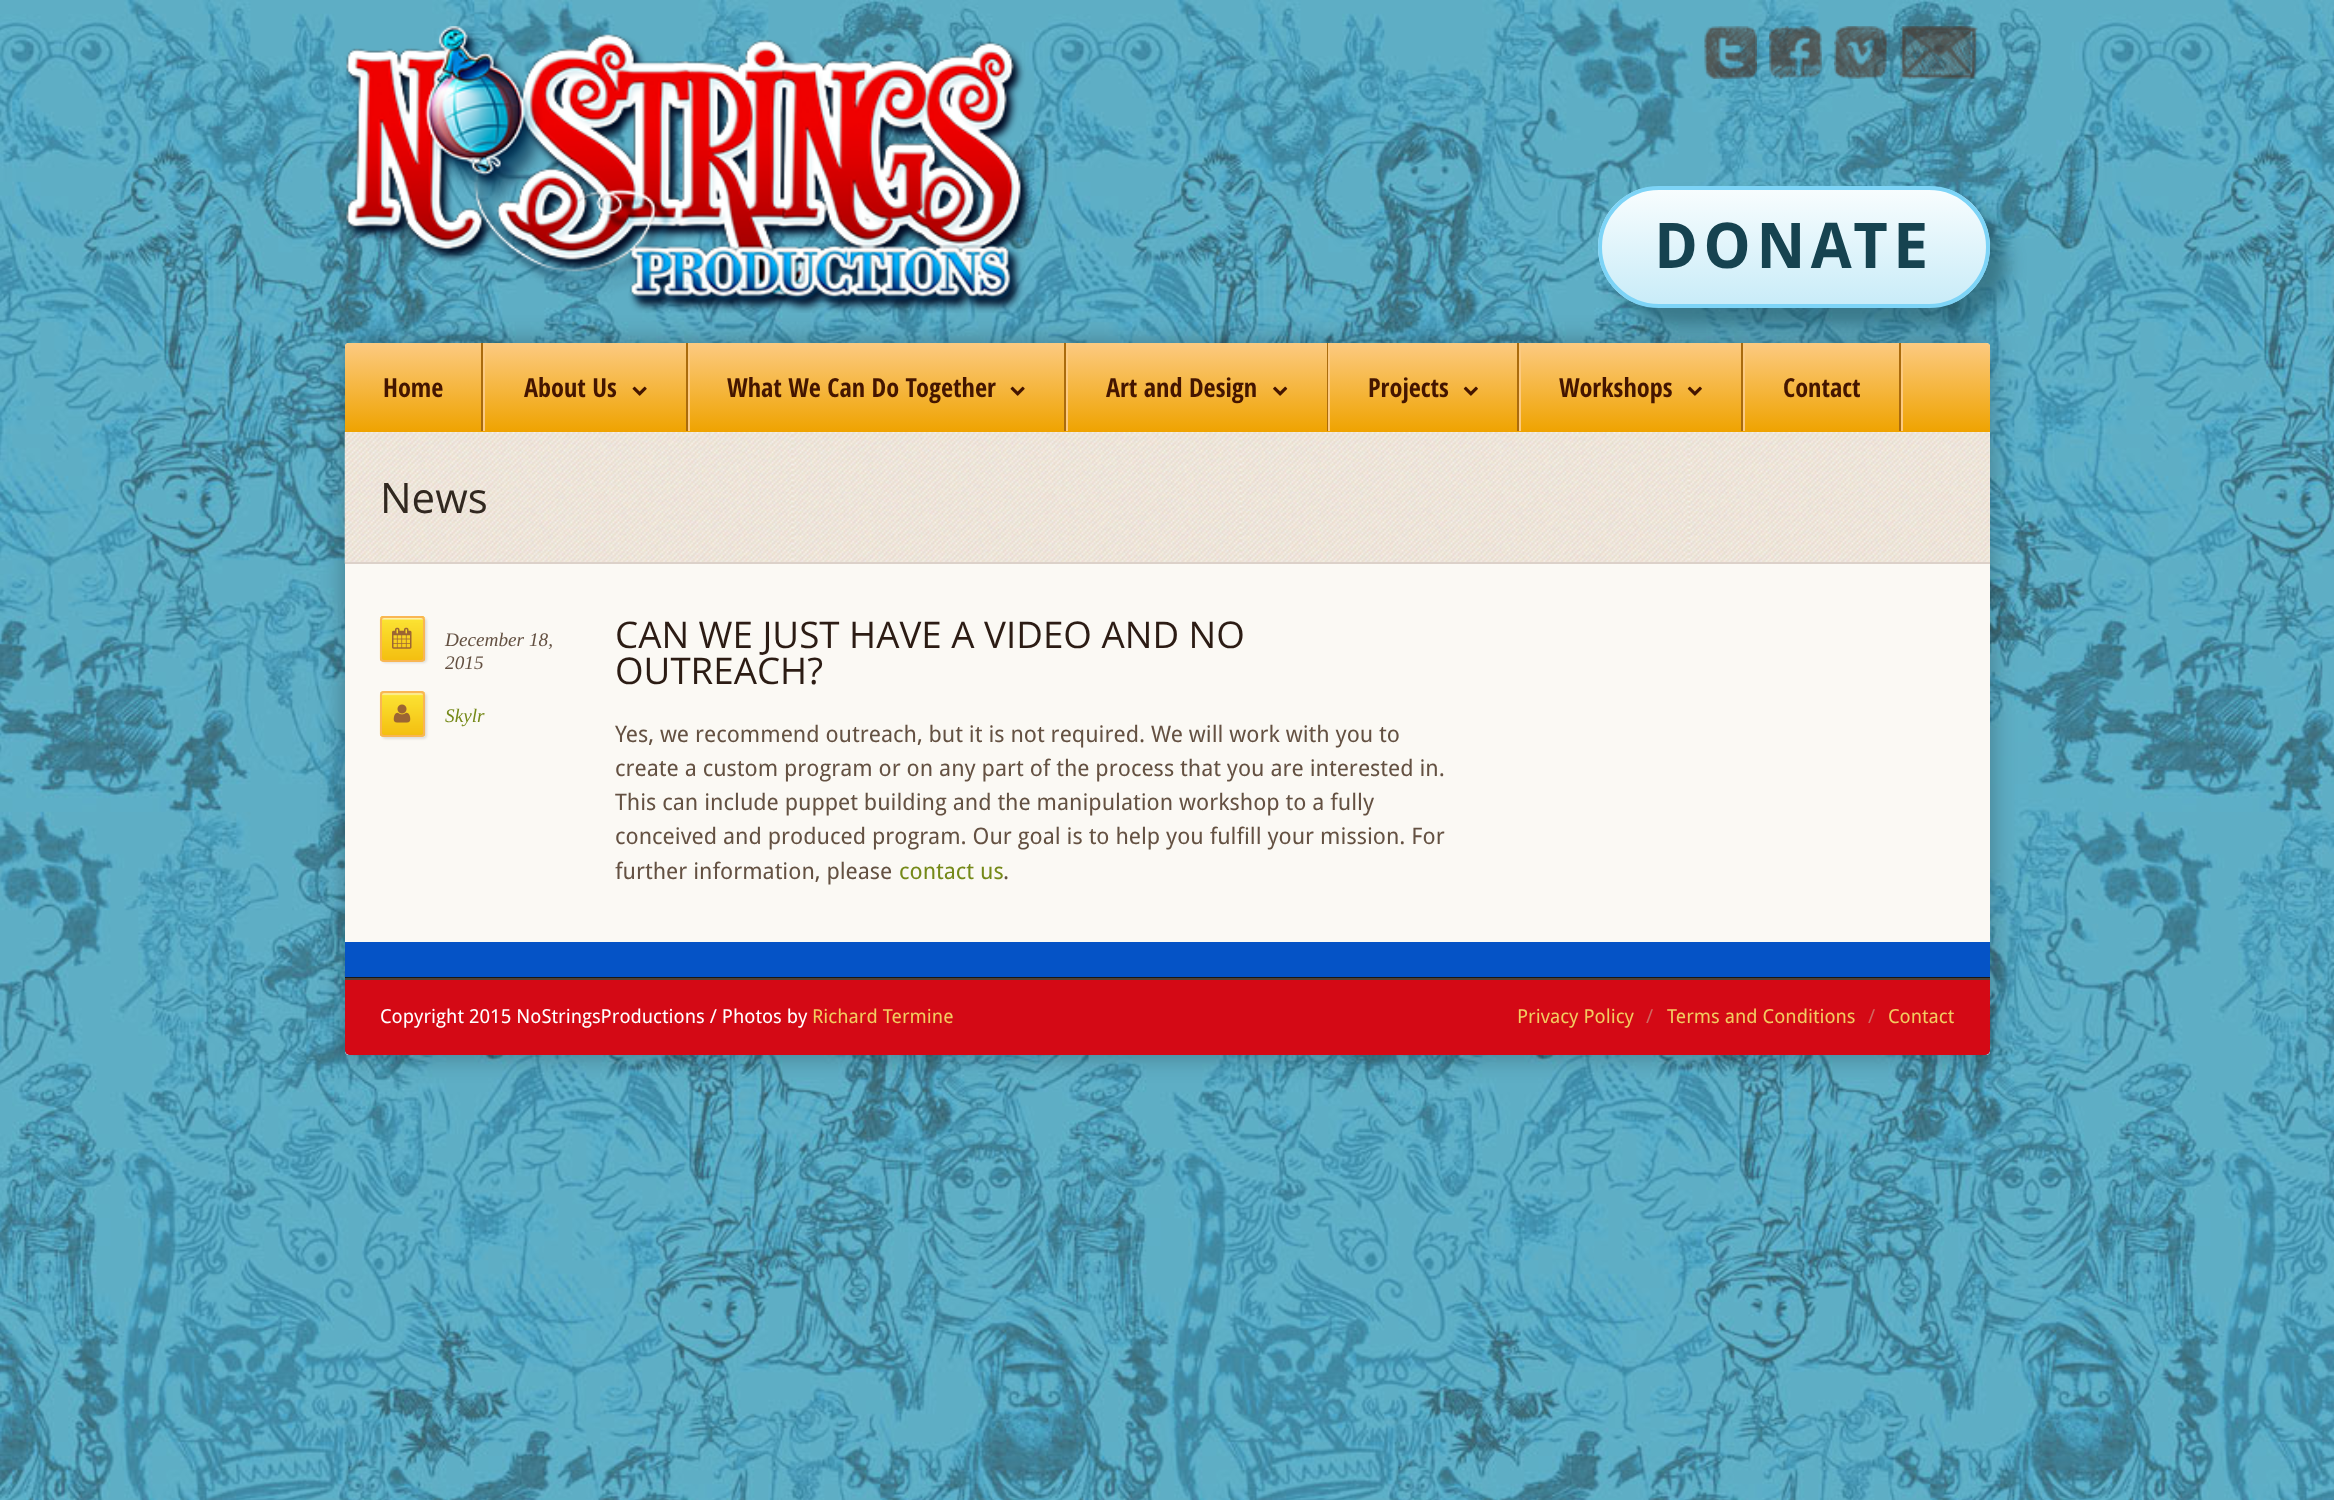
async function draw(canvas) {
  canvas.width = 2334
  canvas.height = 1500
  const ctx = canvas.getContext('2d')
  ctx.miterLimit = 4
  ctx.fontKerning = 'normal'
  async function loadImage(src) {
    const img = new Image()
    img.src = src
    await img.decode()
    return img
  }
  let gradient

  ctx.fillStyle = '#fff'
  ctx.fillRect(0, 0, 2334, 1500)
  ctx.drawImage(await loadImage('image0.png'), 0, 0, 2334, 1500)
  ctx.drawImage(await loadImage('image1.png'), 345, 26, 687, 287)
  ctx.drawImage(await loadImage('image2.png'), 1704, 26, 53, 53)
  ctx.drawImage(await loadImage('image3.png'), 1769, 26, 53, 53)
  ctx.drawImage(await loadImage('image4.png'), 1834, 26, 53, 53)
  ctx.drawImage(await loadImage('image5.png'), 1899, 26, 79, 53)
  ctx.fillStyle = '#16435080'
  ctx.filter = 'blur(9px)'
  ctx.beginPath()
  ctx.roundRect(1615, 203, 392, 123, 61.5)
  ctx.fill()
  ctx.filter = 'none'
  ctx.save()
  ctx.beginPath()
  ctx.roundRect(1598, 186, 392, 122, 61)
  ctx.clip()
  gradient = ctx.createLinearGradient(1794, 189, 1794, 305)
  gradient.addColorStop(0, '#f8fdfe')
  gradient.addColorStop(1, '#c9ecf8')
  ctx.fillStyle = gradient
  ctx.fillRect(1598, 189, 392, 116)
  ctx.restore()
  ctx.beginPath()
  ctx.roundRect(1600, 188, 388, 118, 59)
  ctx.strokeStyle = '#7dd4f7'
  ctx.lineWidth = 4
  ctx.stroke()
  ctx.letterSpacing = '5.25px'
  ctx.font = 'bold 63px Droid Sans'
  ctx.fillStyle = '#164350'
  ctx.fillText('DONATE', 1654, 268)
  ctx.fillStyle = '#0000004d'
  ctx.filter = 'blur(13px)'
  ctx.beginPath()
  ctx.roundRect(345, 343, 1645, 712, 4)
  ctx.fill()
  ctx.filter = 'none'
  ctx.fillStyle = '#fbf9f4'
  ctx.beginPath()
  ctx.roundRect(345, 343, 1645, 712, 4)
  ctx.fill()
  gradient = ctx.createLinearGradient(1167, 343, 1167, 432)
  gradient.addColorStop(0, '#fcca81')
  gradient.addColorStop(1, '#efa300')
  ctx.fillStyle = gradient
  ctx.beginPath()
  ctx.roundRect(345, 343, 1645, 89, [4, 4, 0, 0])
  ctx.fill()
  ctx.fillStyle = '#fcca81'
  ctx.fillRect(1901, 343, 2, 88)
  ctx.fillStyle = '#aa6b0d'
  ctx.fillRect(481, 343, 2, 88)
  ctx.letterSpacing = '0px'
  ctx.font = 'bold 26.25px Open Sans Condensed'
  ctx.fillStyle = '#441500'
  ctx.fillText('Home', 383, 397)
  ctx.fillStyle = '#aa6b0d'
  ctx.fillRect(686, 343, 2, 88)
  ctx.fillStyle = '#fcca81'
  ctx.fillRect(483, 343, 2, 88)
  ctx.fillStyle = '#441500'
  ctx.fillText('About Us', 524, 397)
  ctx.drawImage(await loadImage('image6.png'), 632, 386, 15, 10)
  ctx.fillStyle = '#aa6b0d'
  ctx.fillRect(1064, 343, 2, 88)
  ctx.fillStyle = '#fcca81'
  ctx.fillRect(688, 343, 2, 88)
  ctx.fillStyle = '#441500'
  ctx.fillText('What We Can Do Together', 727, 397)
  ctx.drawImage(await loadImage('image6.png'), 1010, 386, 15, 10)
  ctx.fillStyle = '#aa6b0d'
  ctx.fillRect(1327, 343, 1, 88)
  ctx.fillStyle = '#fcca81'
  ctx.fillRect(1066, 343, 2, 88)
  ctx.fillStyle = '#441500'
  ctx.fillText('Art and Design', 1106, 397)
  ctx.drawImage(await loadImage('image7.png'), 1273, 386, 15, 10)
  ctx.fillStyle = '#aa6b0d'
  ctx.fillRect(1517, 343, 2, 88)
  ctx.fillStyle = '#fcca81'
  ctx.fillRect(1328, 343, 2, 88)
  ctx.fillStyle = '#441500'
  ctx.fillText('Projects', 1368, 397)
  ctx.drawImage(await loadImage('image8.png'), 1463, 386, 15, 10)
  ctx.fillStyle = '#aa6b0d'
  ctx.fillRect(1741, 343, 2, 88)
  ctx.fillStyle = '#fcca81'
  ctx.fillRect(1519, 343, 2, 88)
  ctx.fillStyle = '#441500'
  ctx.fillText('Workshops', 1559, 397)
  ctx.drawImage(await loadImage('image8.png'), 1687, 386, 15, 10)
  ctx.fillStyle = '#aa6b0d'
  ctx.fillRect(1899, 343, 2, 88)
  ctx.fillStyle = '#fcca81'
  ctx.fillRect(1743, 343, 2, 88)
  ctx.fillStyle = '#441500'
  ctx.fillText('Contact', 1783, 397)
  ctx.fillStyle = '#f7f2e7'
  ctx.fillRect(345, 432, 1645, 130)
  ctx.drawImage(await loadImage('image9.png'), 344, 432, 1646, 132)
  ctx.fillStyle = '#dcd1c9'
  ctx.fillRect(345, 562, 1645, 2)
  ctx.font = '42px Open Sans'
  ctx.fillStyle = '#312820'
  ctx.fillText('News', 380, 513)
  ctx.fillStyle = '#0000001a'
  ctx.filter = 'blur(1px)'
  ctx.beginPath()
  ctx.roundRect(382, 618, 45, 45, 4)
  ctx.fill()
  ctx.filter = 'none'
  ctx.drawImage(await loadImage('image10.png'), 379, 616, 47, 46)
  ctx.beginPath()
  ctx.roundRect(381, 617, 43, 44, 3)
  ctx.strokeStyle = '#f9b653'
  ctx.lineWidth = 2
  ctx.stroke()
  ctx.drawImage(await loadImage('image11.png'), 392, 627, 20, 22)
  ctx.font = 'italic 19.25px Liberation Serif'
  ctx.fillStyle = '#645142'
  ctx.fillText('December 18,', 445, 646)
  ctx.fillText('2015', 445, 669)
  ctx.fillStyle = '#0000001a'
  ctx.filter = 'blur(1px)'
  ctx.beginPath()
  ctx.roundRect(382, 693, 45, 46, 4)
  ctx.fill()
  ctx.filter = 'none'
  ctx.drawImage(await loadImage('image12.png'), 379, 691, 47, 46)
  ctx.beginPath()
  ctx.roundRect(381, 692, 43, 44, 3)
  ctx.stroke()
  ctx.drawImage(await loadImage('image13.png'), 393, 704, 18, 19)
  ctx.fillStyle = '#758918'
  ctx.fillText('Skylr', 445, 722)
  ctx.font = '36.75px Open Sans'
  ctx.fillStyle = '#2c1c14'
  ctx.fillText('CAN WE JUST HAVE A VIDEO AND NO', 615, 648)
  ctx.fillText('OUTREACH?', 615, 684)
  ctx.font = '22.75px Droid Sans'
  ctx.fillStyle = '#645142'
  ctx.fillText('Yes, we recommend outreach, but it is not required. We will work with you to', 615, 742)
  ctx.fillText('create a custom program or on any part of the process that you are interested in.', 615, 776)
  ctx.fillText('This can include puppet building and the manipulation workshop to a fully', 615, 810)
  ctx.fillText('conceived and produced program. Our goal is to help you fulfill your mission. For', 615, 844)
  ctx.fillText('further information, please', 615, 879)
  ctx.fillStyle = '#758918'
  ctx.fillText('contact us', 899, 879)
  ctx.fillStyle = '#645142'
  ctx.fillText('.', 1003, 879)
  ctx.fillStyle = '#0553c6'
  ctx.beginPath()
  ctx.roundRect(345, 942, 1645, 113, [0, 0, 5, 5])
  ctx.fill()
  ctx.fillStyle = '#1c1713'
  ctx.fillRect(345, 977, 1645, 1)
  ctx.fillStyle = '#d40915'
  ctx.beginPath()
  ctx.roundRect(345, 978, 1645, 77, [0, 0, 5, 5])
  ctx.fill()
  ctx.fillStyle = '#4f4135'
  ctx.fillRect(345, 978, 1645, 2)
  ctx.font = '19.25px Droid Sans'
  ctx.fillStyle = '#fff'
  ctx.fillText('Copyright 2015 NoStringsProductions / Photos by', 380, 1023)
  ctx.fillStyle = '#f2cb60'
  ctx.fillText('Richard Termine', 812, 1023)
  ctx.fillText('Privacy Policy', 1517, 1023)
  ctx.fillStyle = '#d06861'
  ctx.fillText('/', 1646, 1023)
  ctx.fillStyle = '#f2cb60'
  ctx.fillText('Terms and Conditions', 1667, 1023)
  ctx.fillStyle = '#d06861'
  ctx.fillText('/', 1868, 1023)
  ctx.fillStyle = '#f2cb60'
  ctx.fillText('Contact', 1888, 1023)
}

draw(document.querySelector('canvas'))
